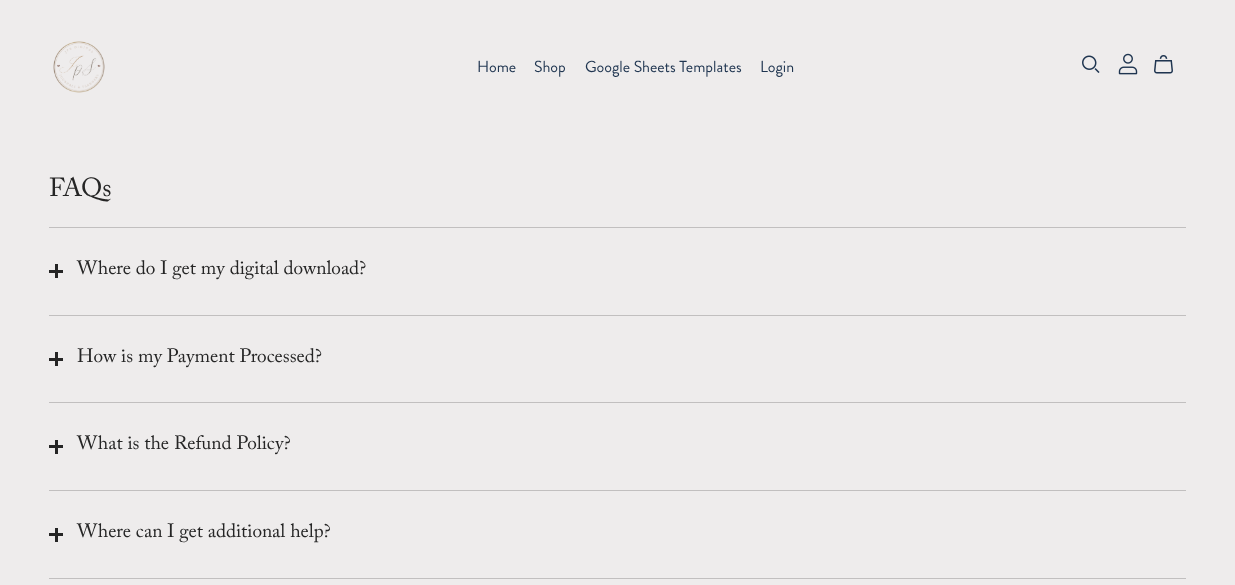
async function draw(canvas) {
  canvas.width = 1235
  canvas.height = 585
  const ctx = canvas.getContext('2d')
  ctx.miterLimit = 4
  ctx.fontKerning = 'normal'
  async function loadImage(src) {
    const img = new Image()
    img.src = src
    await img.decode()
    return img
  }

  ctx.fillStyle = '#eeecec'
  ctx.fillRect(0, 0, 1235, 585)
  ctx.drawImage(await loadImage('image0.png'), 53, 41, 52, 52)
  ctx.font = '16px Brandon Grotesque'
  ctx.fillStyle = '#1f3550'
  ctx.fillText('Home', 477, 72)
  ctx.fillText('Shop', 534, 72)
  ctx.fillText('Google Sheets Templates', 585, 72)
  ctx.fillText('Login', 760, 72)
  ctx.drawImage(await loadImage('image1.png'), 1082, 55, 18, 18)
  ctx.drawImage(await loadImage('image2.png'), 1118, 53, 20, 22)
  ctx.drawImage(await loadImage('image3.png'), 1154, 55, 19, 19)
  ctx.font = '26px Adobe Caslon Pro'
  ctx.fillStyle = '#252525'
  ctx.fillText('FAQs', 49, 196)
  ctx.fillStyle = '#c1bfbf'
  ctx.fillRect(49, 227, 1137, 1)
  ctx.fillStyle = '#252525'
  ctx.fillRect(49, 270, 14, 3)
  ctx.fillRect(55, 264, 3, 14)
  ctx.font = '19.25px Adobe Caslon Pro'
  ctx.fillText('Where do I get my digital download?', 77, 274)
  ctx.fillStyle = '#c1bfbf'
  ctx.fillRect(49, 315, 1137, 1)
  ctx.fillStyle = '#252525'
  ctx.fillRect(49, 358, 14, 3)
  ctx.fillRect(55, 352, 3, 14)
  ctx.fillText('How is my Payment Processed?', 77, 362)
  ctx.fillStyle = '#c1bfbf'
  ctx.fillRect(49, 402, 1137, 1)
  ctx.fillStyle = '#252525'
  ctx.fillRect(49, 445, 14, 3)
  ctx.fillRect(55, 440, 3, 14)
  ctx.fillText('What is the Refund Policy?', 77, 449)
  ctx.fillStyle = '#c1bfbf'
  ctx.fillRect(49, 490, 1137, 1)
  ctx.fillStyle = '#252525'
  ctx.fillRect(49, 533, 14, 3)
  ctx.fillRect(55, 528, 3, 14)
  ctx.fillText('Where can I get additional help?', 77, 537)
  ctx.fillStyle = '#c1bfbf'
  ctx.fillRect(49, 578, 1137, 1)
}

draw(document.querySelector('canvas'))
